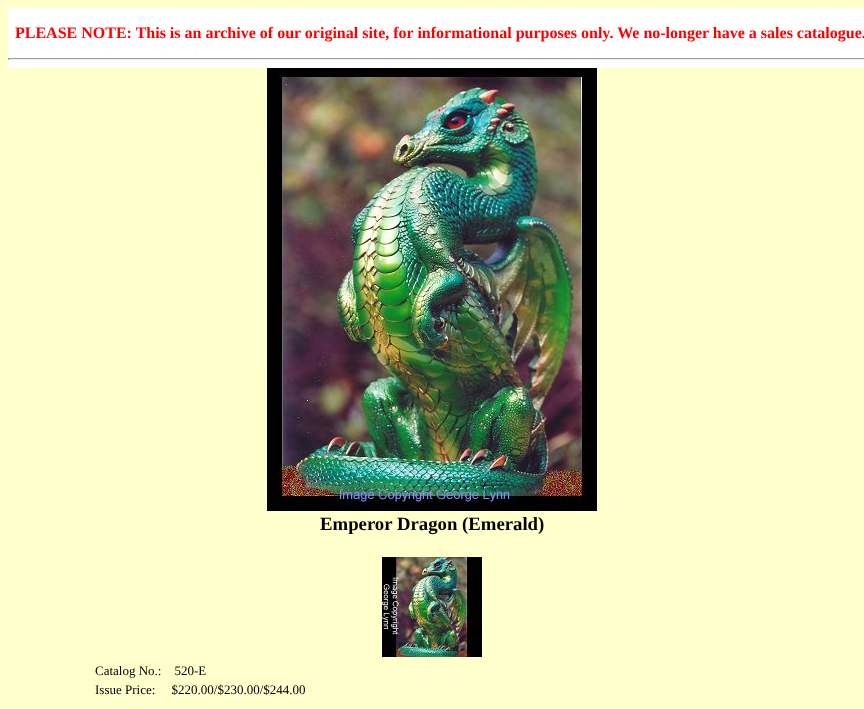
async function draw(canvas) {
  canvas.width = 864
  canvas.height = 709
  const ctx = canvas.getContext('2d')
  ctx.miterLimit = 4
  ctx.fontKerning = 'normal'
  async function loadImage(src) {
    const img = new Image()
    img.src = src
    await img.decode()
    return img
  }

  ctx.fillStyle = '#ffc'
  ctx.fillRect(0, 0, 864, 709)
  ctx.fillStyle = '#fff'
  ctx.fillRect(8, 8, 856, 60)
  ctx.font = 'bold 16px Liberation Serif'
  ctx.fillStyle = '#f00'
  ctx.fillText('PLEASE NOTE: This is an archive of our original site, for informational purposes only. We no-longer have a sales catalogue.', 15, 38)
  ctx.fillStyle = '#9f9f9f'
  ctx.fillRect(8, 58, 856, 1)
  ctx.fillStyle = '#eee'
  ctx.fillRect(8, 59, 856, 1)
  ctx.fillStyle = '#9f9f9f'
  ctx.fillRect(8, 58, 1, 2)
  ctx.drawImage(await loadImage('image0.png'), 267, 68, 330, 443)
  ctx.font = 'bold 18.75px Liberation Serif'
  ctx.fillStyle = '#000'
  ctx.fillText('Emperor Dragon (Emerald)', 320, 530)
  ctx.drawImage(await loadImage('image1.png'), 382, 557, 100, 100)
  ctx.font = '13px Liberation Serif'
  ctx.fillText('Catalog No.:    520-E', 95, 675)
  ctx.fillText('Issue Price:     $220.00/$230.00/$244.00', 95, 694)
}

draw(document.querySelector('canvas'))
